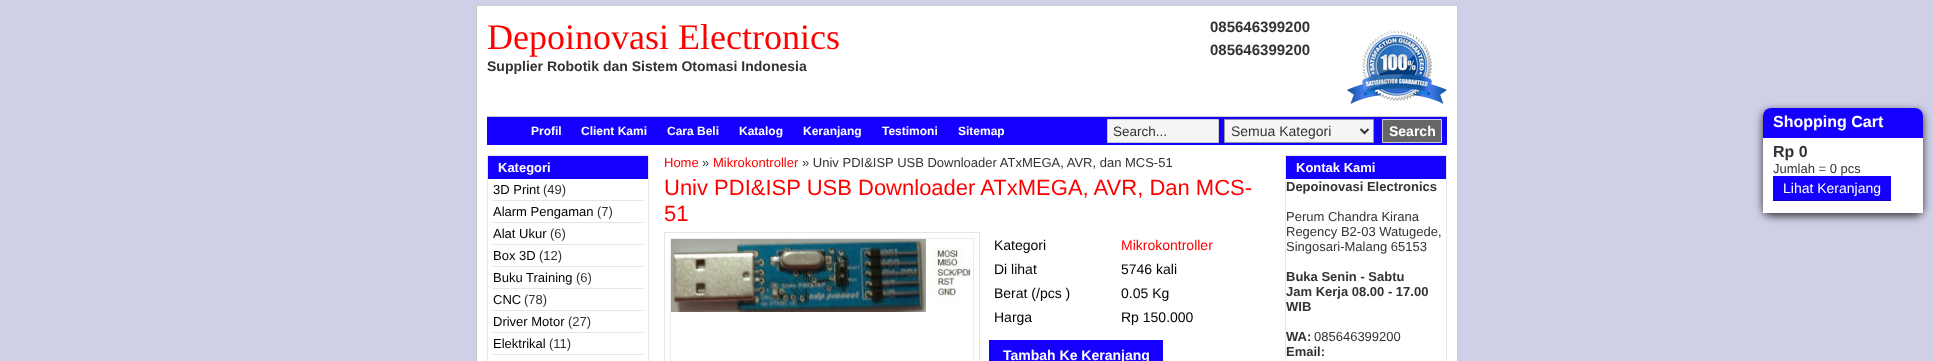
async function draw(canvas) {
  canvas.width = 1933
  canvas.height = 361
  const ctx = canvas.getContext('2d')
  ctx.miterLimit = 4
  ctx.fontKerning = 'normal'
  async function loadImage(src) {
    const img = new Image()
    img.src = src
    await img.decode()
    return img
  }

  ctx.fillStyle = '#cfd0e8'
  ctx.fillRect(0, 0, 1933, 361)
  ctx.fillStyle = '#fff'
  ctx.beginPath()
  ctx.rect(476.5, 5.5, 981, 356)
  ctx.fill()
  ctx.strokeStyle = '#ccc'
  ctx.stroke()
  ctx.font = '36px Liberation Serif'
  ctx.fillStyle = '#f00'
  ctx.fillText('Depoinovasi Electronics', 487, 49)
  ctx.font = 'bold 14px Liberation Sans'
  ctx.fillStyle = '#333'
  ctx.fillText('Supplier Robotik dan Sistem Otomasi Indonesia', 487, 71)
  ctx.font = 'bold 15px Liberation Sans'
  ctx.fillText('085646399200', 1210, 32)
  ctx.fillText('085646399200', 1210, 55)
  ctx.drawImage(await loadImage('image0.png'), 1347, 30, 100, 74)
  ctx.strokeStyle = '#e5e5e5'
  ctx.strokeRect(487.5, 155.5, 161, 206)
  ctx.fillStyle = '#1500ff'
  ctx.fillRect(488, 156, 160, 23)
  ctx.font = 'bold 13px Liberation Sans'
  ctx.fillStyle = '#fff'
  ctx.fillText('Kategori', 498, 172)
  ctx.fillStyle = '#e5e5e5'
  ctx.fillRect(493, 200, 150, 1)
  ctx.font = '13px Liberation Sans'
  ctx.fillStyle = '#000'
  ctx.fillText('3D Print', 493, 194)
  ctx.fillStyle = '#333'
  ctx.fillText('(49)', 543, 194)
  ctx.fillStyle = '#e5e5e5'
  ctx.fillRect(493, 222, 150, 1)
  ctx.fillStyle = '#000'
  ctx.fillText('Alarm Pengaman', 493, 216)
  ctx.fillStyle = '#333'
  ctx.fillText('(7)', 597, 216)
  ctx.fillStyle = '#e5e5e5'
  ctx.fillRect(493, 244, 150, 1)
  ctx.fillStyle = '#000'
  ctx.fillText('Alat Ukur', 493, 238)
  ctx.fillStyle = '#333'
  ctx.fillText('(6)', 550, 238)
  ctx.fillStyle = '#e5e5e5'
  ctx.fillRect(493, 266, 150, 1)
  ctx.fillStyle = '#000'
  ctx.fillText('Box 3D', 493, 260)
  ctx.fillStyle = '#333'
  ctx.fillText('(12)', 539, 260)
  ctx.fillStyle = '#e5e5e5'
  ctx.fillRect(493, 288, 150, 1)
  ctx.fillStyle = '#000'
  ctx.fillText('Buku Training', 493, 282)
  ctx.fillStyle = '#333'
  ctx.fillText('(6)', 576, 282)
  ctx.fillStyle = '#e5e5e5'
  ctx.fillRect(493, 310, 150, 1)
  ctx.fillStyle = '#000'
  ctx.fillText('CNC', 493, 304)
  ctx.fillStyle = '#333'
  ctx.fillText('(78)', 524, 304)
  ctx.fillStyle = '#e5e5e5'
  ctx.fillRect(493, 332, 150, 1)
  ctx.fillStyle = '#000'
  ctx.fillText('Driver Motor', 493, 326)
  ctx.fillStyle = '#333'
  ctx.fillText('(27)', 568, 326)
  ctx.fillStyle = '#e5e5e5'
  ctx.fillRect(493, 354, 150, 1)
  ctx.fillStyle = '#000'
  ctx.fillText('Elektrikal', 493, 348)
  ctx.fillStyle = '#333'
  ctx.fillText('(11)', 549, 348)
  ctx.fillStyle = '#f00'
  ctx.fillText('Home', 664, 167)
  ctx.fillStyle = '#333'
  ctx.fillText('»', 702, 167)
  ctx.fillStyle = '#f00'
  ctx.fillText('Mikrokontroller', 713, 167)
  ctx.fillStyle = '#333'
  ctx.fillText('» Univ PDI&ISP USB Downloader ATxMEGA, AVR, dan MCS-51', 802, 167)
  ctx.font = '22px Liberation Sans'
  ctx.fillStyle = '#f00'
  ctx.fillText('Univ PDI&ISP USB Downloader ATxMEGA, AVR, Dan MCS-', 664, 195)
  ctx.fillText('51', 664, 221)
  ctx.strokeRect(664.5, 232.5, 315, 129)
  ctx.strokeStyle = '#ebebeb'
  ctx.strokeRect(670.5, 238.5, 303, 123)
  ctx.drawImage(await loadImage('image1.png'), 671, 239, 300, 73)
  ctx.font = '14px Liberation Sans'
  ctx.fillStyle = '#000'
  ctx.fillText('Kategori', 994, 250)
  ctx.fillStyle = '#f00'
  ctx.fillText('Mikrokontroller', 1121, 250)
  ctx.fillStyle = '#000'
  ctx.fillText('Di lihat', 994, 274)
  ctx.fillText('5746 kali', 1121, 274)
  ctx.fillText('Berat (/pcs )', 994, 298)
  ctx.fillText('0.05 Kg', 1121, 298)
  ctx.fillText('Harga', 994, 322)
  ctx.fillText('Rp 150.000', 1121, 322)
  ctx.fillStyle = '#1500ff'
  ctx.fillRect(989, 340, 174, 21)
  ctx.font = 'bold 14px Liberation Sans'
  ctx.fillStyle = '#fff'
  ctx.fillText('Tambah Ke Keranjang', 1003, 360)
  ctx.fillStyle = '#323232'
  ctx.filter = 'blur(4px)'
  ctx.beginPath()
  ctx.roundRect(1763, 111, 160, 105, 8)
  ctx.fill()
  ctx.filter = 'none'
  ctx.fillStyle = '#fff'
  ctx.beginPath()
  ctx.roundRect(1763, 108, 160, 105, [8, 8, 0, 0])
  ctx.fill()
  ctx.fillStyle = '#1500ff'
  ctx.beginPath()
  ctx.roundRect(1763, 108, 160, 30, [8, 8, 0, 0])
  ctx.fill()
  ctx.font = 'bold 16px Liberation Sans'
  ctx.fillStyle = '#fff'
  ctx.fillText('Shopping Cart', 1773, 127)
  ctx.fillStyle = '#333'
  ctx.fillText('Rp 0', 1773, 157)
  ctx.font = '13px Liberation Sans'
  ctx.fillText('Jumlah = 0 pcs', 1773, 173)
  ctx.fillStyle = '#1500ff'
  ctx.fillRect(1773, 176, 118, 24)
  ctx.fillStyle = '#1000bf'
  ctx.fillRect(1773, 200, 118, 1)
  ctx.font = '14px Liberation Sans'
  ctx.fillStyle = '#fff'
  ctx.fillText('Lihat Keranjang', 1783, 193)
  ctx.strokeStyle = '#e5e5e5'
  ctx.strokeRect(1285.5, 155.5, 161, 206)
  ctx.fillStyle = '#1500ff'
  ctx.fillRect(1286, 156, 160, 23)
  ctx.font = 'bold 13px Liberation Sans'
  ctx.fillStyle = '#fff'
  ctx.fillText('Kontak Kami', 1296, 172)
  ctx.fillStyle = '#333'
  ctx.fillText('Depoinovasi Electronics', 1286, 191)
  ctx.font = '13px Liberation Sans'
  ctx.fillText('Perum Chandra Kirana', 1286, 221)
  ctx.fillText('Regency B2-03 Watugede,', 1286, 236)
  ctx.fillText('Singosari-Malang 65153', 1286, 251)
  ctx.font = 'bold 13px Liberation Sans'
  ctx.fillText('Buka Senin - Sabtu', 1286, 281)
  ctx.fillText('Jam Kerja 08.00 - 17.00', 1286, 296)
  ctx.fillText('WIB', 1286, 311)
  ctx.fillText('WA:', 1286, 341)
  ctx.font = '13px Liberation Sans'
  ctx.fillText('085646399200', 1314, 341)
  ctx.font = 'bold 13px Liberation Sans'
  ctx.fillText('Email:', 1286, 356)
  ctx.fillStyle = '#1500ff'
  ctx.fillRect(487, 117, 960, 28)
  ctx.fillStyle = '#ccc'
  ctx.fillRect(487, 116, 960, 1)
  ctx.font = 'bold 12px Liberation Sans'
  ctx.fillStyle = '#fff'
  ctx.fillText('Profil', 531, 135)
  ctx.fillText('Client Kami', 581, 135)
  ctx.fillText('Cara Beli', 667, 135)
  ctx.fillText('Katalog', 739, 135)
  ctx.fillText('Keranjang', 803, 135)
  ctx.fillText('Testimoni', 882, 135)
  ctx.fillText('Sitemap', 958, 135)
  ctx.fillStyle = '#f5f5f5'
  ctx.beginPath()
  ctx.rect(1107.5, 119.5, 111, 23)
  ctx.fill()
  ctx.strokeStyle = '#ccc'
  ctx.stroke()
  ctx.font = '13.5px Liberation Sans'
  ctx.fillStyle = '#333'
  ctx.fillText('Search...', 1113, 136)
  ctx.fillStyle = '#f5f5f5'
  ctx.beginPath()
  ctx.rect(1224.5, 119.5, 149, 23)
  ctx.fill()
  ctx.strokeStyle = '#999'
  ctx.stroke()
  ctx.beginPath()
  ctx.moveTo(1360.5, 129)
  ctx.lineTo(1364.5, 133)
  ctx.lineTo(1368.5, 129)
  ctx.strokeStyle = '#333'
  ctx.lineWidth = 2
  ctx.stroke()
  ctx.font = '14px Liberation Sans'
  ctx.fillStyle = '#333'
  ctx.fillText('Semua Kategori', 1231, 136)
  ctx.fillStyle = '#666'
  ctx.beginPath()
  ctx.rect(1382.5, 119.5, 59, 23)
  ctx.fill()
  ctx.strokeStyle = '#ccc'
  ctx.lineWidth = 1
  ctx.stroke()
  ctx.font = 'bold 14px Liberation Sans'
  ctx.fillStyle = '#fff'
  ctx.fillText('Search', 1389, 136)
}

draw(document.querySelector('canvas'))
